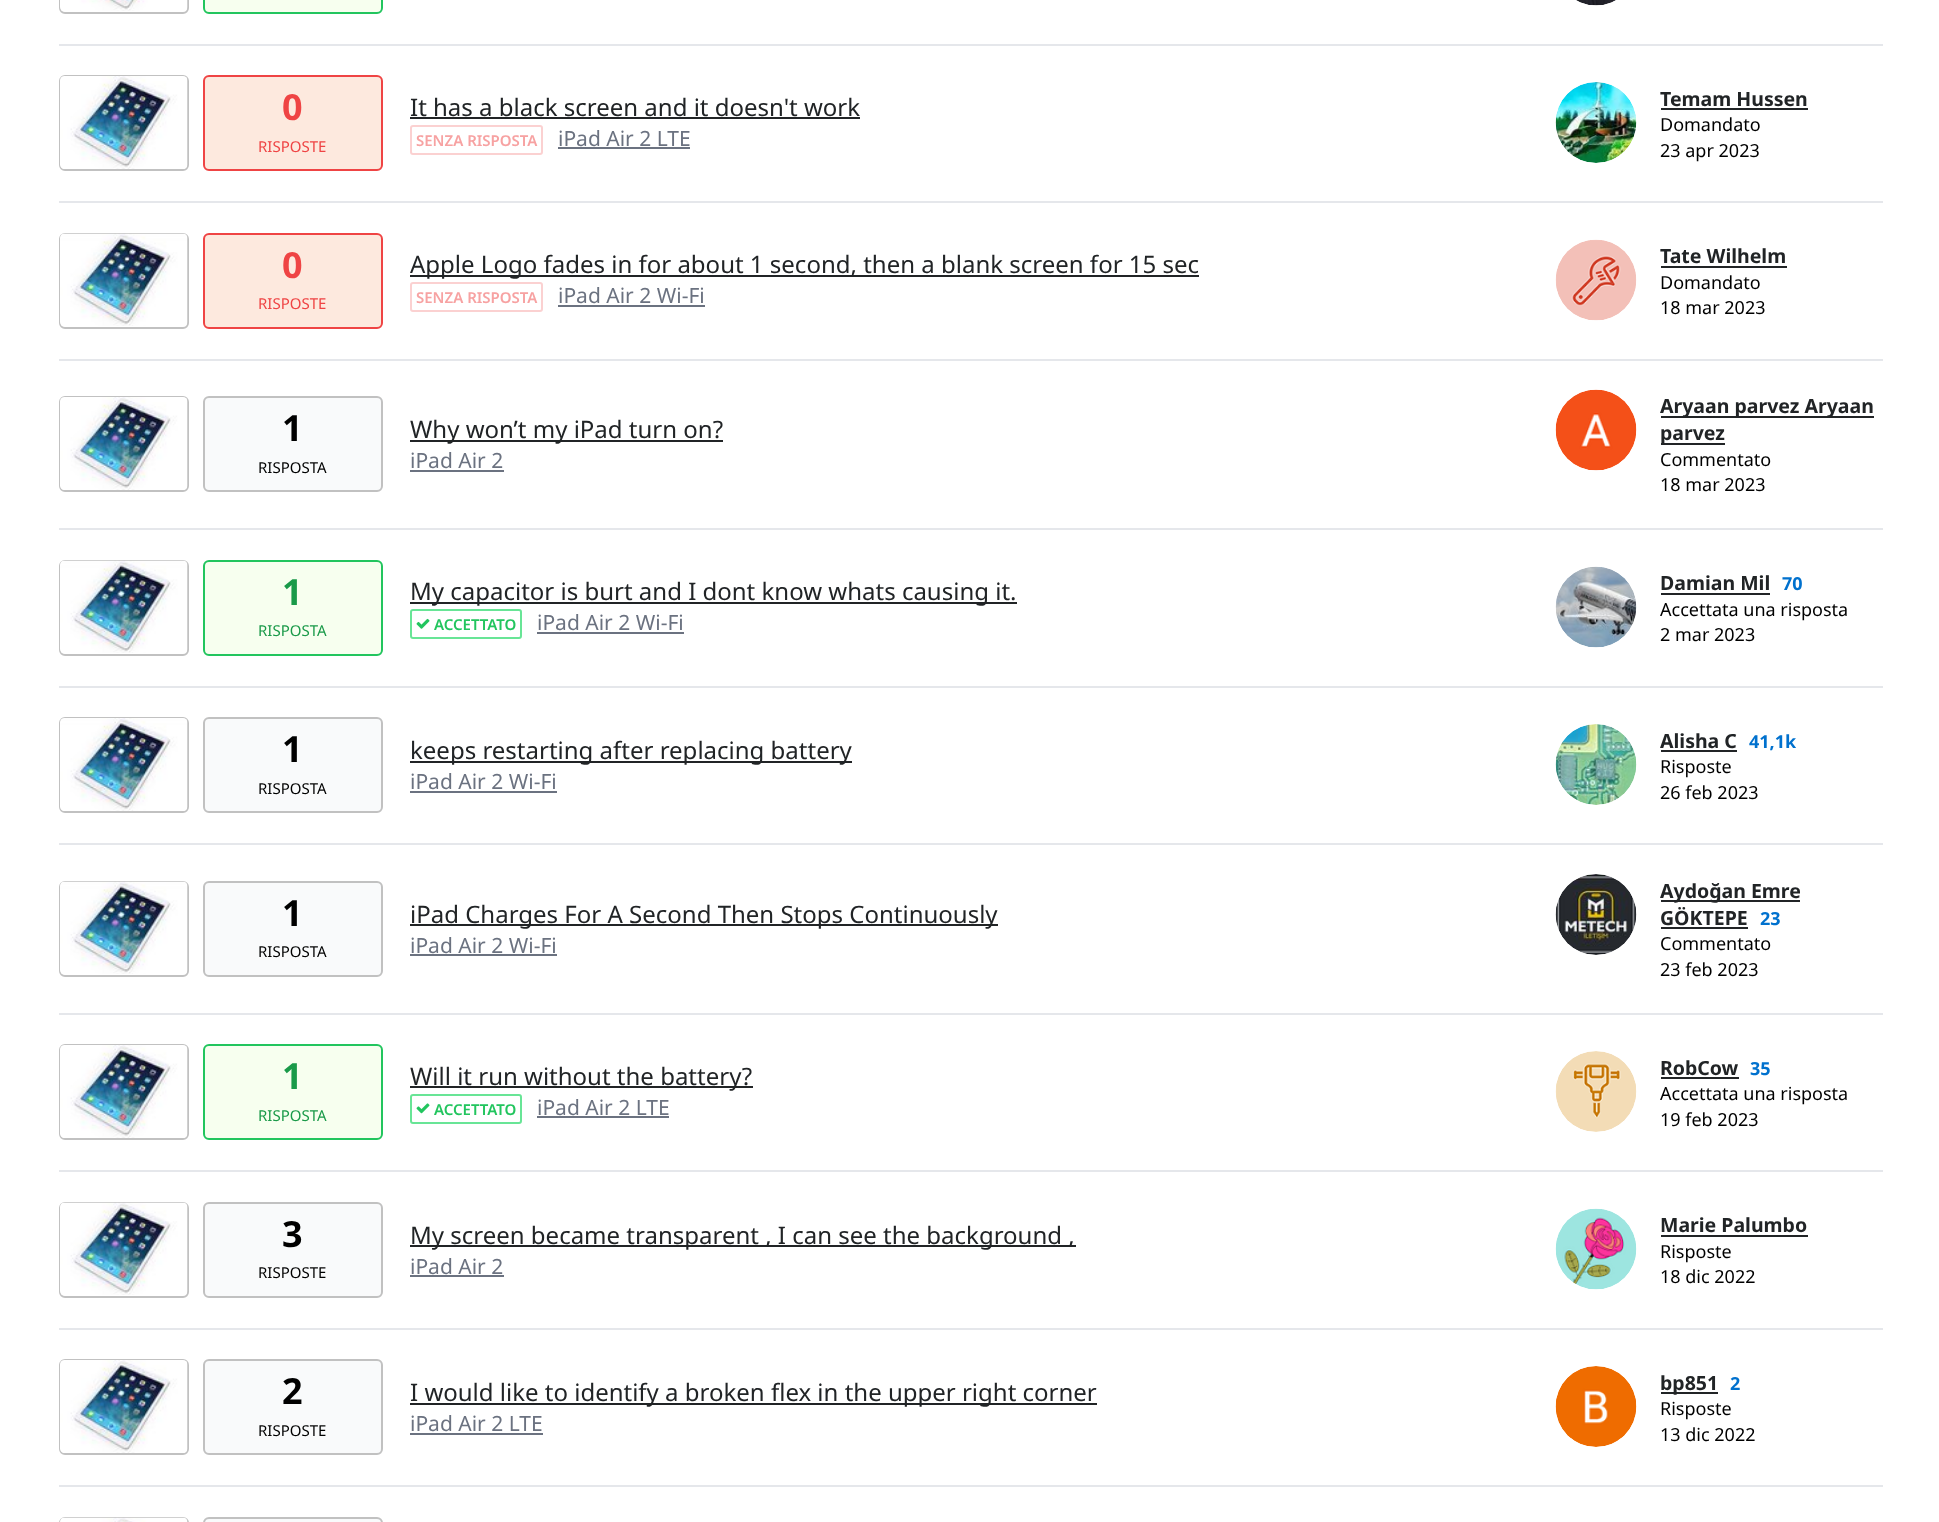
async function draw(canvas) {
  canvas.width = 1939
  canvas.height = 1522
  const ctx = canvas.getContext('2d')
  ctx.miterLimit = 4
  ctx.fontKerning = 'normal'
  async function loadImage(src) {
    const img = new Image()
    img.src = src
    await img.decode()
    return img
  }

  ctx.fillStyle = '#fff'
  ctx.fillRect(0, 0, 1939, 1522)
  ctx.fillStyle = '#e5e7eb'
  ctx.fillRect(59, 44, 1824, 2)
  ctx.beginPath()
  ctx.roundRect(60, -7, 128, 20, 5)
  ctx.strokeStyle = '#c1c1c1'
  ctx.lineWidth = 2
  ctx.stroke()
  ctx.drawImage(await loadImage('image0.png'), 60, 0, 128, 11)
  ctx.fillStyle = '#f7ffef'
  ctx.beginPath()
  ctx.roundRect(204, -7, 178, 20, 5)
  ctx.fill()
  ctx.strokeStyle = '#22c55e'
  ctx.stroke()
  ctx.drawImage(await loadImage('image1.png'), 1576, 0, 40, 6)
  ctx.fillStyle = '#e5e7eb'
  ctx.fillRect(59, 201, 1824, 2)
  ctx.beginPath()
  ctx.roundRect(60, 76, 128, 94, 5)
  ctx.strokeStyle = '#c1c1c1'
  ctx.stroke()
  ctx.drawImage(await loadImage('image2.png'), 60, 76, 128, 93)
  ctx.fillStyle = '#fde9de'
  ctx.beginPath()
  ctx.roundRect(204, 76, 178, 94, 5)
  ctx.fill()
  ctx.strokeStyle = '#ef4444'
  ctx.stroke()
  ctx.font = 'bold 36px Noto Sans'
  ctx.fillStyle = '#ef4444'
  ctx.fillText('0', 282, 120)
  ctx.font = '15px Noto Sans'
  ctx.fillText('RISPOSTE', 258, 152)
  ctx.font = '24px Noto Sans'
  ctx.fillStyle = '#212426'
  ctx.fillText('It has a black screen and it doesn\'t work', 410, 116)
  ctx.fillRect(410, 117, 450, 2)
  ctx.beginPath()
  ctx.roundRect(411, 126, 131, 28, 2)
  ctx.strokeStyle = '#fbd1d1'
  ctx.stroke()
  ctx.font = '600 15px Noto Sans'
  ctx.fillStyle = '#f7a2a2'
  ctx.fillText('SENZA RISPOSTA', 416, 146)
  ctx.font = '21px Noto Sans'
  ctx.fillStyle = '#6b7280'
  ctx.fillText('iPad Air 2 LTE', 558, 146)
  ctx.fillRect(558, 147, 132, 2)
  ctx.drawImage(await loadImage('image3.png'), 1555, 82, 82, 81)
  ctx.font = 'bold 19.5px Noto Sans'
  ctx.fillStyle = '#212426'
  ctx.fillText('Temam Hussen', 1660, 106)
  ctx.fillRect(1661, 108, 147, 2)
  ctx.font = '18px Noto Sans'
  ctx.fillStyle = '#000'
  ctx.fillText('Domandato', 1660, 131)
  ctx.fillText('23 apr 2023', 1660, 157)
  ctx.fillStyle = '#e5e7eb'
  ctx.fillRect(59, 359, 1824, 2)
  ctx.beginPath()
  ctx.roundRect(60, 234, 128, 94, 5)
  ctx.strokeStyle = '#c1c1c1'
  ctx.stroke()
  ctx.drawImage(await loadImage('image4.png'), 60, 233, 128, 93)
  ctx.fillStyle = '#fde9de'
  ctx.beginPath()
  ctx.roundRect(204, 234, 178, 94, 5)
  ctx.fill()
  ctx.strokeStyle = '#ef4444'
  ctx.stroke()
  ctx.font = 'bold 36px Noto Sans'
  ctx.fillStyle = '#ef4444'
  ctx.fillText('0', 282, 278)
  ctx.font = '15px Noto Sans'
  ctx.fillText('RISPOSTE', 258, 309)
  ctx.fillStyle = '#212426'
  ctx.fillRect(410, 275, 789, 2)
  ctx.font = '24px Noto Sans'
  ctx.fillText('Apple Logo fades in for about 1 second, then a blank screen for 15 sec', 410, 273)
  ctx.beginPath()
  ctx.roundRect(411, 283, 131, 28, 2)
  ctx.strokeStyle = '#fbd1d1'
  ctx.stroke()
  ctx.font = '600 15px Noto Sans'
  ctx.fillStyle = '#f7a2a2'
  ctx.fillText('SENZA RISPOSTA', 416, 303)
  ctx.font = '21px Noto Sans'
  ctx.fillStyle = '#6b7280'
  ctx.fillText('iPad Air 2 Wi-Fi', 558, 303)
  ctx.fillRect(558, 305, 147, 2)
  ctx.drawImage(await loadImage('image5.png'), 1555, 239, 82, 82)
  ctx.font = 'bold 19.5px Noto Sans'
  ctx.fillStyle = '#212426'
  ctx.fillText('Tate Wilhelm', 1660, 263)
  ctx.fillRect(1661, 266, 126, 2)
  ctx.font = '18px Noto Sans'
  ctx.fillStyle = '#000'
  ctx.fillText('Domandato', 1660, 289)
  ctx.fillText('18 mar 2023', 1660, 314)
  ctx.fillStyle = '#e5e7eb'
  ctx.fillRect(59, 528, 1824, 2)
  ctx.beginPath()
  ctx.roundRect(60, 397, 128, 94, 5)
  ctx.strokeStyle = '#c1c1c1'
  ctx.stroke()
  ctx.drawImage(await loadImage('image6.png'), 60, 397, 128, 93)
  ctx.fillStyle = '#f9fafb'
  ctx.beginPath()
  ctx.roundRect(204, 397, 178, 94, 5)
  ctx.fill()
  ctx.stroke()
  ctx.font = 'bold 36px Noto Sans'
  ctx.fillStyle = '#000'
  ctx.fillText('1', 282, 441)
  ctx.font = '15px Noto Sans'
  ctx.fillText('RISPOSTA', 258, 473)
  ctx.fillStyle = '#212426'
  ctx.fillRect(410, 440, 313, 2)
  ctx.font = '24px Noto Sans'
  ctx.fillText('Why won’t my iPad turn on?', 410, 438)
  ctx.font = '21px Noto Sans'
  ctx.fillStyle = '#6b7280'
  ctx.fillText('iPad Air 2', 410, 468)
  ctx.fillRect(410, 470, 94, 2)
  ctx.drawImage(await loadImage('image7.png'), 1555, 389, 82, 82)
  ctx.fillStyle = '#212426'
  ctx.fillRect(1661, 416, 213, 2)
  ctx.font = 'bold 19.5px Noto Sans'
  ctx.fillText('Aryaan parvez Aryaan', 1660, 413)
  ctx.fillRect(1661, 443, 64, 2)
  ctx.fillText('parvez', 1660, 440)
  ctx.font = '18px Noto Sans'
  ctx.fillStyle = '#000'
  ctx.fillText('Commentato', 1660, 466)
  ctx.fillText('18 mar 2023', 1660, 491)
  ctx.fillStyle = '#e5e7eb'
  ctx.fillRect(59, 686, 1824, 2)
  ctx.beginPath()
  ctx.roundRect(60, 561, 128, 94, 5)
  ctx.stroke()
  ctx.drawImage(await loadImage('image4.png'), 60, 560, 128, 93)
  ctx.fillStyle = '#f7ffef'
  ctx.beginPath()
  ctx.roundRect(204, 561, 178, 94, 5)
  ctx.fill()
  ctx.strokeStyle = '#22c55e'
  ctx.stroke()
  ctx.font = 'bold 36px Noto Sans'
  ctx.fillStyle = '#1a9a49'
  ctx.fillText('1', 282, 605)
  ctx.font = '15px Noto Sans'
  ctx.fillText('RISPOSTA', 258, 636)
  ctx.fillStyle = '#212426'
  ctx.fillRect(410, 602, 607, 2)
  ctx.font = '24px Noto Sans'
  ctx.fillText('My capacitor is burt and I dont know whats causing it.', 410, 600)
  ctx.beginPath()
  ctx.roundRect(411, 610, 110, 28, 2)
  ctx.strokeStyle = '#68e596'
  ctx.stroke()
  ctx.drawImage(await loadImage('image8.png'), 416, 618, 14, 11)
  ctx.font = '600 15px Noto Sans'
  ctx.fillStyle = '#22c55e'
  ctx.fillText('ACCETTATO', 434, 630)
  ctx.font = '21px Noto Sans'
  ctx.fillStyle = '#6b7280'
  ctx.fillText('iPad Air 2 Wi-Fi', 537, 630)
  ctx.fillRect(537, 632, 147, 2)
  ctx.drawImage(await loadImage('image9.png'), 1555, 566, 82, 82)
  ctx.font = 'bold 19.5px Noto Sans'
  ctx.fillStyle = '#212426'
  ctx.fillText('Damian Mil', 1660, 590)
  ctx.fillRect(1661, 593, 109, 2)
  ctx.font = 'bold 18px Noto Sans'
  ctx.fillStyle = '#0071ce'
  ctx.fillText('70', 1782, 590)
  ctx.font = '18px Noto Sans'
  ctx.fillStyle = '#000'
  ctx.fillText('Accettata una risposta', 1660, 616)
  ctx.fillText('2 mar 2023', 1660, 641)
  ctx.fillStyle = '#e5e7eb'
  ctx.fillRect(59, 843, 1824, 2)
  ctx.beginPath()
  ctx.roundRect(60, 718, 128, 94, 5)
  ctx.strokeStyle = '#c1c1c1'
  ctx.stroke()
  ctx.drawImage(await loadImage('image10.png'), 60, 718, 128, 93)
  ctx.fillStyle = '#f9fafb'
  ctx.beginPath()
  ctx.roundRect(204, 718, 178, 94, 5)
  ctx.fill()
  ctx.stroke()
  ctx.font = 'bold 36px Noto Sans'
  ctx.fillStyle = '#000'
  ctx.fillText('1', 282, 762)
  ctx.font = '15px Noto Sans'
  ctx.fillText('RISPOSTA', 258, 794)
  ctx.fillStyle = '#212426'
  ctx.fillRect(410, 761, 442, 2)
  ctx.font = '24px Noto Sans'
  ctx.fillText('keeps restarting after replacing battery', 410, 759)
  ctx.font = '21px Noto Sans'
  ctx.fillStyle = '#6b7280'
  ctx.fillText('iPad Air 2 Wi-Fi', 410, 789)
  ctx.fillRect(410, 791, 147, 2)
  ctx.drawImage(await loadImage('image11.png'), 1555, 724, 82, 81)
  ctx.font = 'bold 19.5px Noto Sans'
  ctx.fillStyle = '#212426'
  ctx.fillText('Alisha C', 1660, 748)
  ctx.fillRect(1661, 750, 76, 2)
  ctx.font = 'bold 18px Noto Sans'
  ctx.fillStyle = '#0071ce'
  ctx.fillText('41,1k', 1749, 748)
  ctx.font = '18px Noto Sans'
  ctx.fillStyle = '#000'
  ctx.fillText('Risposte', 1660, 773)
  ctx.fillText('26 feb 2023', 1660, 799)
  ctx.fillStyle = '#e5e7eb'
  ctx.fillRect(59, 1013, 1824, 2)
  ctx.beginPath()
  ctx.roundRect(60, 882, 128, 94, 5)
  ctx.stroke()
  ctx.drawImage(await loadImage('image4.png'), 60, 881, 128, 93)
  ctx.fillStyle = '#f9fafb'
  ctx.beginPath()
  ctx.roundRect(204, 882, 178, 94, 5)
  ctx.fill()
  ctx.stroke()
  ctx.font = 'bold 36px Noto Sans'
  ctx.fillStyle = '#000'
  ctx.fillText('1', 282, 926)
  ctx.font = '15px Noto Sans'
  ctx.fillText('RISPOSTA', 258, 957)
  ctx.fillStyle = '#212426'
  ctx.fillRect(410, 924, 588, 2)
  ctx.font = '24px Noto Sans'
  ctx.fillText('iPad Charges For A Second Then Stops Continuously', 410, 923)
  ctx.font = '21px Noto Sans'
  ctx.fillStyle = '#6b7280'
  ctx.fillText('iPad Air 2 Wi-Fi', 410, 953)
  ctx.fillRect(410, 954, 147, 2)
  ctx.drawImage(await loadImage('image12.png'), 1555, 874, 82, 81)
  ctx.fillStyle = '#212426'
  ctx.fillRect(1661, 900, 139, 2)
  ctx.font = 'bold 19.5px Noto Sans'
  ctx.fillText('Aydoğan Emre', 1660, 898)
  ctx.fillText('GÖKTEPE', 1660, 925)
  ctx.fillRect(1661, 927, 87, 2)
  ctx.font = 'bold 18px Noto Sans'
  ctx.fillStyle = '#0071ce'
  ctx.fillText('23', 1760, 925)
  ctx.font = '18px Noto Sans'
  ctx.fillStyle = '#000'
  ctx.fillText('Commentato', 1660, 950)
  ctx.fillText('23 feb 2023', 1660, 976)
  ctx.fillStyle = '#e5e7eb'
  ctx.fillRect(59, 1170, 1824, 2)
  ctx.beginPath()
  ctx.roundRect(60, 1045, 128, 94, 5)
  ctx.stroke()
  ctx.drawImage(await loadImage('image2.png'), 60, 1045, 128, 93)
  ctx.fillStyle = '#f7ffef'
  ctx.beginPath()
  ctx.roundRect(204, 1045, 178, 94, 5)
  ctx.fill()
  ctx.strokeStyle = '#22c55e'
  ctx.stroke()
  ctx.font = 'bold 36px Noto Sans'
  ctx.fillStyle = '#1a9a49'
  ctx.fillText('1', 282, 1089)
  ctx.font = '15px Noto Sans'
  ctx.fillText('RISPOSTA', 258, 1121)
  ctx.fillStyle = '#212426'
  ctx.fillRect(410, 1086, 343, 2)
  ctx.font = '24px Noto Sans'
  ctx.fillText('Will it run without the battery?', 410, 1085)
  ctx.beginPath()
  ctx.roundRect(411, 1095, 110, 28, 2)
  ctx.strokeStyle = '#68e596'
  ctx.stroke()
  ctx.drawImage(await loadImage('image13.png'), 416, 1103, 14, 11)
  ctx.font = '600 15px Noto Sans'
  ctx.fillStyle = '#22c55e'
  ctx.fillText('ACCETTATO', 434, 1115)
  ctx.font = '21px Noto Sans'
  ctx.fillStyle = '#6b7280'
  ctx.fillText('iPad Air 2 LTE', 537, 1115)
  ctx.fillRect(537, 1116, 132, 2)
  ctx.drawImage(await loadImage('image14.png'), 1555, 1051, 82, 81)
  ctx.font = 'bold 19.5px Noto Sans'
  ctx.fillStyle = '#212426'
  ctx.fillText('RobCow', 1660, 1075)
  ctx.fillRect(1661, 1077, 78, 2)
  ctx.font = 'bold 18px Noto Sans'
  ctx.fillStyle = '#0071ce'
  ctx.fillText('35', 1750, 1075)
  ctx.font = '18px Noto Sans'
  ctx.fillStyle = '#000'
  ctx.fillText('Accettata una risposta', 1660, 1100)
  ctx.fillText('19 feb 2023', 1660, 1126)
  ctx.fillStyle = '#e5e7eb'
  ctx.fillRect(59, 1328, 1824, 2)
  ctx.beginPath()
  ctx.roundRect(60, 1203, 128, 94, 5)
  ctx.strokeStyle = '#c1c1c1'
  ctx.stroke()
  ctx.drawImage(await loadImage('image15.png'), 60, 1202, 128, 93)
  ctx.fillStyle = '#f9fafb'
  ctx.beginPath()
  ctx.roundRect(204, 1203, 178, 94, 5)
  ctx.fill()
  ctx.stroke()
  ctx.font = 'bold 36px Noto Sans'
  ctx.fillStyle = '#000'
  ctx.fillText('3', 282, 1247)
  ctx.font = '15px Noto Sans'
  ctx.fillText('RISPOSTE', 258, 1278)
  ctx.fillStyle = '#212426'
  ctx.fillRect(410, 1245, 666, 2)
  ctx.font = '24px Noto Sans'
  ctx.fillText('My screen became transparent , I can see the background ,', 410, 1244)
  ctx.font = '21px Noto Sans'
  ctx.fillStyle = '#6b7280'
  ctx.fillText('iPad Air 2', 410, 1274)
  ctx.fillRect(410, 1275, 94, 2)
  ctx.drawImage(await loadImage('image16.png'), 1555, 1208, 82, 82)
  ctx.font = 'bold 19.5px Noto Sans'
  ctx.fillStyle = '#212426'
  ctx.fillText('Marie Palumbo', 1660, 1232)
  ctx.fillRect(1661, 1235, 147, 2)
  ctx.font = '18px Noto Sans'
  ctx.fillStyle = '#000'
  ctx.fillText('Risposte', 1660, 1258)
  ctx.fillText('18 dic 2022', 1660, 1283)
  ctx.fillStyle = '#e5e7eb'
  ctx.fillRect(59, 1485, 1824, 2)
  ctx.beginPath()
  ctx.roundRect(60, 1360, 128, 94, 5)
  ctx.stroke()
  ctx.drawImage(await loadImage('image2.png'), 60, 1360, 128, 93)
  ctx.fillStyle = '#f9fafb'
  ctx.beginPath()
  ctx.roundRect(204, 1360, 178, 94, 5)
  ctx.fill()
  ctx.stroke()
  ctx.font = 'bold 36px Noto Sans'
  ctx.fillStyle = '#000'
  ctx.fillText('2', 282, 1404)
  ctx.font = '15px Noto Sans'
  ctx.fillText('RISPOSTE', 258, 1436)
  ctx.fillStyle = '#212426'
  ctx.fillRect(410, 1403, 687, 2)
  ctx.font = '24px Noto Sans'
  ctx.fillText('I would like to identify a broken flex in the upper right corner', 410, 1401)
  ctx.font = '21px Noto Sans'
  ctx.fillStyle = '#6b7280'
  ctx.fillText('iPad Air 2 LTE', 410, 1431)
  ctx.fillRect(410, 1433, 133, 2)
  ctx.drawImage(await loadImage('image17.png'), 1555, 1366, 82, 81)
  ctx.fillStyle = '#212426'
  ctx.fillRect(1661, 1392, 57, 2)
  ctx.font = 'bold 19.5px Noto Sans'
  ctx.fillText('bp851', 1660, 1390)
  ctx.font = 'bold 18px Noto Sans'
  ctx.fillStyle = '#0071ce'
  ctx.fillText('2', 1730, 1390)
  ctx.font = '18px Noto Sans'
  ctx.fillStyle = '#000'
  ctx.fillText('Risposte', 1660, 1415)
  ctx.fillText('13 dic 2022', 1660, 1441)
  ctx.beginPath()
  ctx.roundRect(60, 1518, 128, 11, 5)
  ctx.stroke()
  ctx.drawImage(await loadImage('image18.png'), 60, 1517, 128, 5)
  ctx.fillStyle = '#f9fafb'
  ctx.beginPath()
  ctx.roundRect(204, 1518, 178, 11, 5)
  ctx.fill()
  ctx.stroke()
}

draw(document.querySelector('canvas'))
